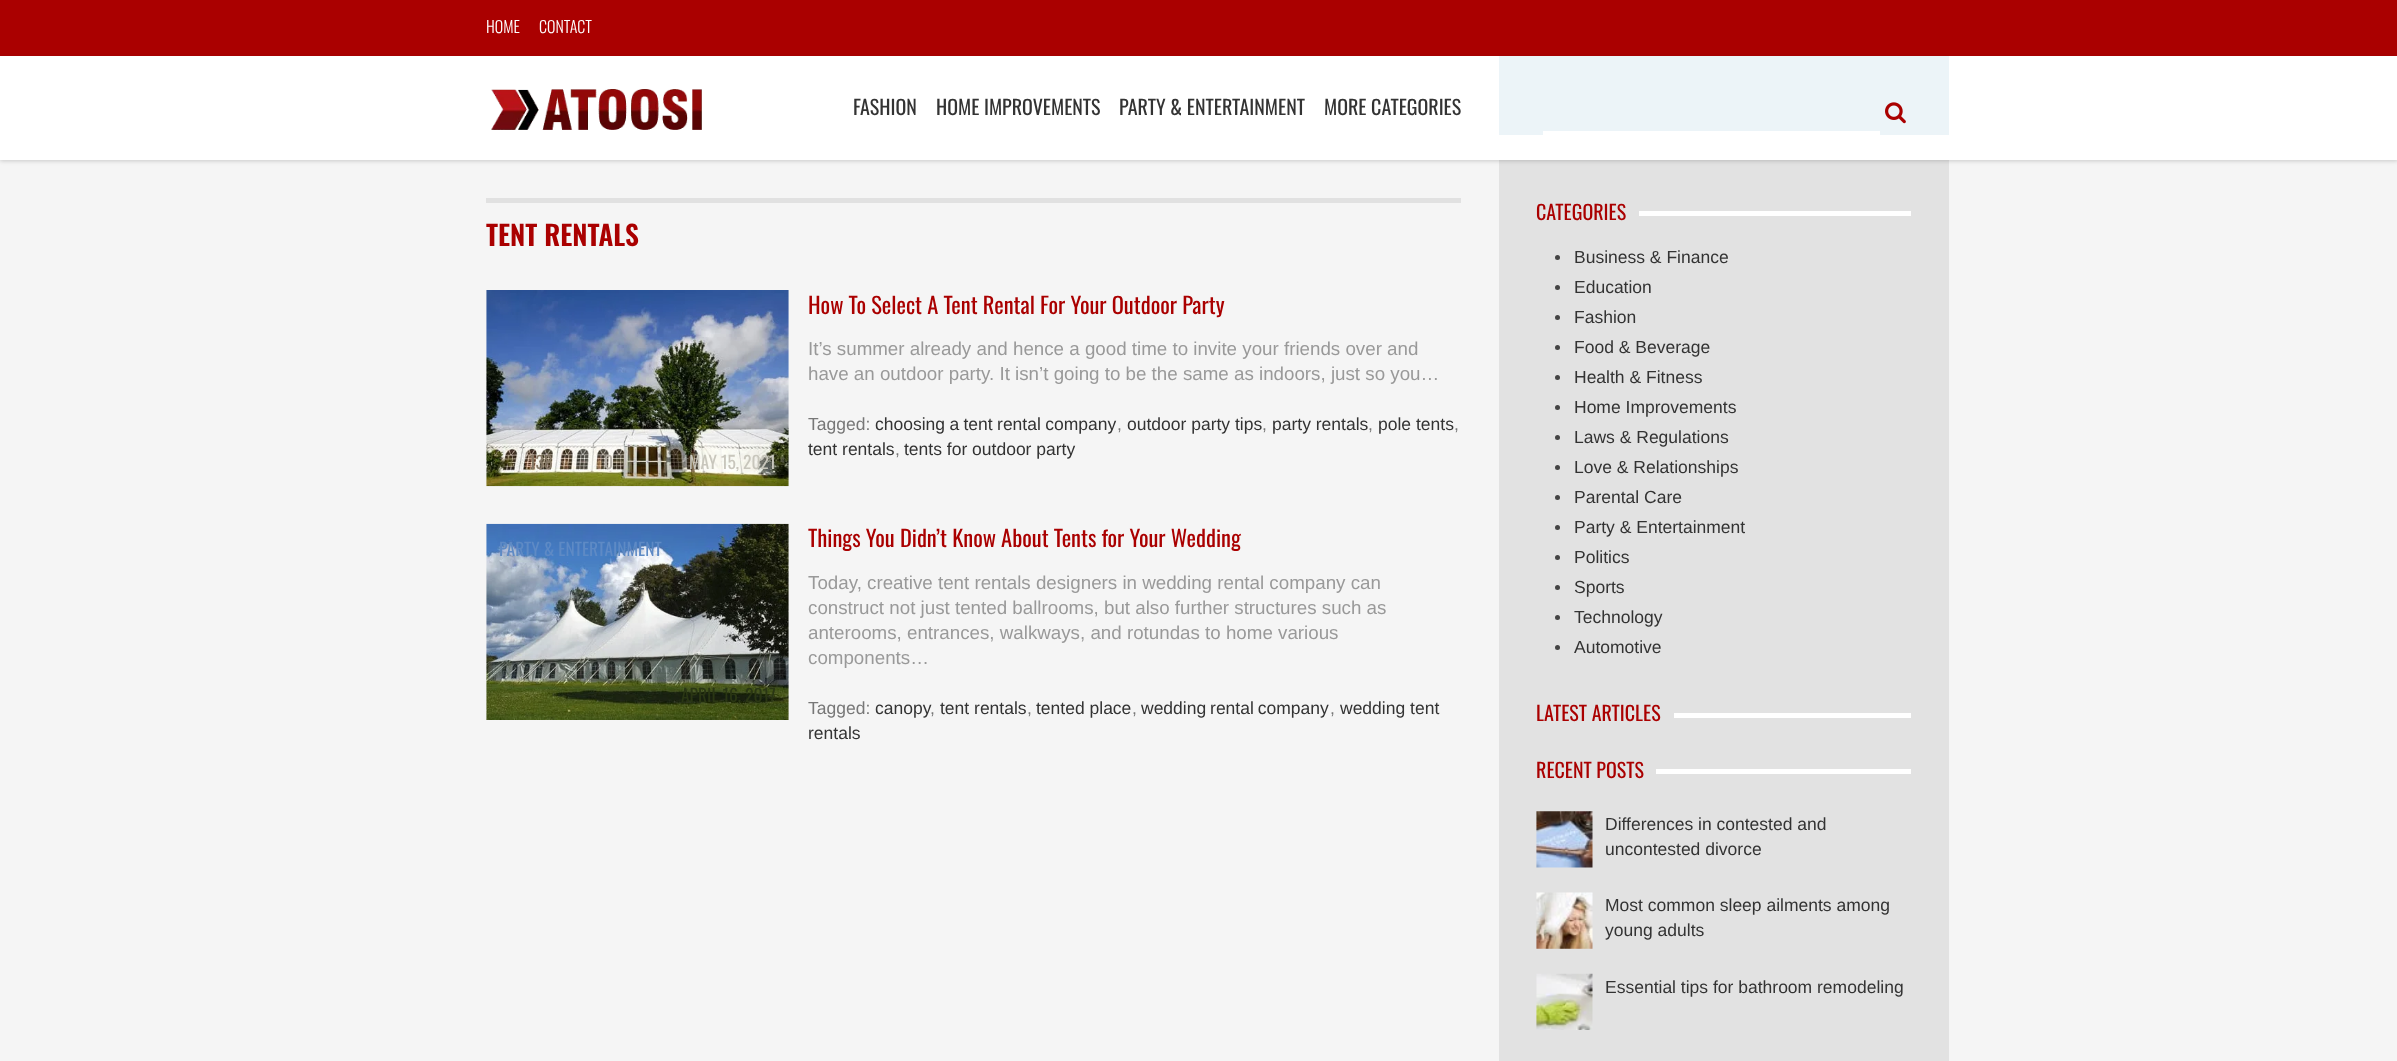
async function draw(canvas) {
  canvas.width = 2397
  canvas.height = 1061
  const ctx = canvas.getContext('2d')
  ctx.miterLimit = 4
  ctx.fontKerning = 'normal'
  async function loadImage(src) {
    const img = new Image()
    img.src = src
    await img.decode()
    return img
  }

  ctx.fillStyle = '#a00'
  ctx.fillRect(0, 0, 2397, 1061)
  ctx.font = '300 16px Oswald'
  ctx.fillStyle = '#fff'
  ctx.fillText('HOME', 486, 33)
  ctx.fillText('CONTACT', 539, 33)
  ctx.fillStyle = '#f5f5f5'
  ctx.fillRect(0, 160, 2397, 901)
  ctx.fillStyle = '#e2e2e2'
  ctx.fillRect(1499, 160, 450, 901)
  ctx.fillStyle = '#0000002e'
  ctx.filter = 'blur(2px)'
  ctx.beginPath()
  ctx.rect(0, 58, 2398, 103)
  ctx.fill()
  ctx.filter = 'none'
  ctx.fillStyle = '#fff'
  ctx.fillRect(0, 56, 2397, 104)
  ctx.drawImage(await loadImage('image0.png'), 491, 89, 211, 41)
  ctx.font = '20px Oswald'
  ctx.fillStyle = '#333'
  ctx.fillText('FASHION', 853, 115)
  ctx.fillText('HOME IMPROVEMENTS', 936, 115)
  ctx.fillText('PARTY & ENTERTAINMENT', 1119, 115)
  ctx.fillText('MORE CATEGORIES', 1324, 115)
  ctx.fillStyle = '#ecf4f8'
  ctx.fillRect(1499, 56, 450, 79)
  ctx.drawImage(await loadImage('image1.png'), 1885, 102, 21, 22)
  ctx.fillStyle = '#fff'
  ctx.fillRect(1543, 131, 337, 4)
  ctx.fillStyle = '#e1e1e1'
  ctx.fillRect(486, 198, 975, 5)
  ctx.font = '600 27.5px Oswald'
  ctx.fillStyle = '#a00'
  ctx.fillText('TENT RENTALS', 486, 246)
  ctx.font = '22.5px Oswald'
  ctx.fillText('How To Select A Tent Rental For Your Outdoor Party', 808, 314)
  ctx.font = '18.75px Liberation Sans'
  ctx.fillStyle = '#999'
  ctx.fillText('It’s summer already and hence a good time to invite your friends over and', 808, 355)
  ctx.fillText('have an outdoor party. It isn’t going to be the same as indoors, just so you…', 808, 380)
  ctx.font = '17.5px Liberation Sans'
  ctx.fillStyle = '#777'
  ctx.fillText('Tagged:', 808, 430)
  ctx.wordSpacing = '-0.5px'
  ctx.fillStyle = '#333'
  ctx.fillText('choosing a tent rental company', 875, 430)
  ctx.wordSpacing = '0px'
  ctx.fillStyle = '#777'
  ctx.fillText(',', 1117, 430)
  ctx.fillStyle = '#333'
  ctx.fillText('outdoor party tips', 1127, 430)
  ctx.fillStyle = '#777'
  ctx.fillText(',', 1262, 430)
  ctx.fillStyle = '#333'
  ctx.fillText('party rentals', 1272, 430)
  ctx.fillStyle = '#777'
  ctx.fillText(',', 1368, 430)
  ctx.fillStyle = '#333'
  ctx.fillText('pole tents', 1378, 430)
  ctx.fillStyle = '#777'
  ctx.fillText(',', 1454, 430)
  ctx.fillStyle = '#333'
  ctx.fillText('tent rentals', 808, 455)
  ctx.fillStyle = '#777'
  ctx.fillText(',', 895, 455)
  ctx.fillStyle = '#333'
  ctx.fillText('tents for outdoor party', 904, 455)
  ctx.drawImage(await loadImage('image2.png'), 486, 290, 303, 197)
  ctx.font = '17.5px Oswald'
  ctx.fillStyle = '#867967'
  ctx.fillText('138', 529, 469)
  ctx.fillStyle = '#b6b1a8'
  ctx.fillText('0', 604, 469)
  ctx.fillStyle = '#c8c6bc'
  ctx.fillText('MAY 15, 2021', 689, 469)
  ctx.drawImage(await loadImage('image3.png'), 486, 523, 303, 197)
  ctx.fillStyle = '#5e8ac5'
  ctx.fillText('PARTY & ENTERTAINMENT', 499, 556)
  ctx.fillStyle = '#2a3614'
  ctx.fillText('APRIL 16, 2017', 681, 702)
  ctx.font = '22.5px Oswald'
  ctx.fillStyle = '#a00'
  ctx.fillText('Things You Didn’t Know About Tents for Your Wedding', 808, 547)
  ctx.font = '18.75px Liberation Sans'
  ctx.fillStyle = '#999'
  ctx.fillText('Today, creative tent rentals designers in wedding rental company can', 808, 589)
  ctx.fillText('construct not just tented ballrooms, but also further structures such as', 808, 614)
  ctx.fillText('anterooms, entrances, walkways, and rotundas to home various', 808, 639)
  ctx.fillText('components…', 808, 664)
  ctx.font = '17.5px Liberation Sans'
  ctx.fillStyle = '#777'
  ctx.fillText('Tagged:', 808, 714)
  ctx.fillStyle = '#333'
  ctx.fillText('canopy', 875, 714)
  ctx.fillStyle = '#777'
  ctx.fillText(',', 930, 714)
  ctx.fillStyle = '#333'
  ctx.fillText('tent rentals', 940, 714)
  ctx.fillStyle = '#777'
  ctx.fillText(',', 1027, 714)
  ctx.fillStyle = '#333'
  ctx.fillText('tented place', 1036, 714)
  ctx.fillStyle = '#777'
  ctx.fillText(',', 1132, 714)
  ctx.wordSpacing = '-1px'
  ctx.fillStyle = '#333'
  ctx.fillText('wedding rental company', 1141, 714)
  ctx.wordSpacing = '0px'
  ctx.fillStyle = '#777'
  ctx.fillText(',', 1330, 714)
  ctx.fillStyle = '#333'
  ctx.fillText('wedding tent', 1340, 714)
  ctx.fillText('rentals', 808, 739)
  ctx.font = '20px Oswald'
  ctx.fillStyle = '#a00'
  ctx.fillText('CATEGORIES', 1536, 220)
  ctx.fillStyle = '#fff'
  ctx.fillRect(1639, 211, 272, 5)
  ctx.fillStyle = '#444'
  ctx.beginPath()
  ctx.arc(1557.5, 257.5, 2.5, 0, 2 * Math.PI)
  ctx.fill()
  ctx.font = '17.5px Liberation Sans'
  ctx.fillStyle = '#333'
  ctx.fillText('Business & Finance', 1574, 263)
  ctx.fillStyle = '#444'
  ctx.beginPath()
  ctx.arc(1557.5, 287.5, 2.5, 0, 2 * Math.PI)
  ctx.fill()
  ctx.fillStyle = '#333'
  ctx.fillText('Education', 1574, 293)
  ctx.fillStyle = '#444'
  ctx.beginPath()
  ctx.arc(1557.5, 317.5, 2.5, 0, 2 * Math.PI)
  ctx.fill()
  ctx.fillStyle = '#333'
  ctx.fillText('Fashion', 1574, 323)
  ctx.fillStyle = '#444'
  ctx.beginPath()
  ctx.arc(1557.5, 347.5, 2.5, 0, 2 * Math.PI)
  ctx.fill()
  ctx.fillStyle = '#333'
  ctx.fillText('Food & Beverage', 1574, 353)
  ctx.fillStyle = '#444'
  ctx.beginPath()
  ctx.arc(1557.5, 377.5, 2.5, 0, 2 * Math.PI)
  ctx.fill()
  ctx.fillStyle = '#333'
  ctx.fillText('Health & Fitness', 1574, 383)
  ctx.fillStyle = '#444'
  ctx.beginPath()
  ctx.arc(1557.5, 407.5, 2.5, 0, 2 * Math.PI)
  ctx.fill()
  ctx.fillStyle = '#333'
  ctx.fillText('Home Improvements', 1574, 413)
  ctx.fillStyle = '#444'
  ctx.beginPath()
  ctx.arc(1557.5, 437.5, 2.5, 0, 2 * Math.PI)
  ctx.fill()
  ctx.fillStyle = '#333'
  ctx.fillText('Laws & Regulations', 1574, 443)
  ctx.fillStyle = '#444'
  ctx.beginPath()
  ctx.arc(1557.5, 467.5, 2.5, 0, 2 * Math.PI)
  ctx.fill()
  ctx.fillStyle = '#333'
  ctx.fillText('Love & Relationships', 1574, 473)
  ctx.fillStyle = '#444'
  ctx.beginPath()
  ctx.arc(1557.5, 497.5, 2.5, 0, 2 * Math.PI)
  ctx.fill()
  ctx.fillStyle = '#333'
  ctx.fillText('Parental Care', 1574, 503)
  ctx.fillStyle = '#444'
  ctx.beginPath()
  ctx.arc(1557.5, 527.5, 2.5, 0, 2 * Math.PI)
  ctx.fill()
  ctx.fillStyle = '#333'
  ctx.fillText('Party & Entertainment', 1574, 533)
  ctx.fillStyle = '#444'
  ctx.beginPath()
  ctx.arc(1557.5, 557.5, 2.5, 0, 2 * Math.PI)
  ctx.fill()
  ctx.fillStyle = '#333'
  ctx.fillText('Politics', 1574, 563)
  ctx.fillStyle = '#444'
  ctx.beginPath()
  ctx.arc(1557.5, 587.5, 2.5, 0, 2 * Math.PI)
  ctx.fill()
  ctx.fillStyle = '#333'
  ctx.fillText('Sports', 1574, 593)
  ctx.fillStyle = '#444'
  ctx.beginPath()
  ctx.arc(1557.5, 617.5, 2.5, 0, 2 * Math.PI)
  ctx.fill()
  ctx.fillStyle = '#333'
  ctx.fillText('Technology', 1574, 623)
  ctx.fillStyle = '#444'
  ctx.beginPath()
  ctx.arc(1557.5, 647.5, 2.5, 0, 2 * Math.PI)
  ctx.fill()
  ctx.fillStyle = '#333'
  ctx.fillText('Automotive', 1574, 653)
  ctx.font = '20px Oswald'
  ctx.fillStyle = '#a00'
  ctx.fillText('LATEST ARTICLES', 1536, 721)
  ctx.fillStyle = '#fff'
  ctx.fillRect(1674, 713, 237, 5)
  ctx.fillStyle = '#a00'
  ctx.fillText('RECENT POSTS', 1536, 778)
  ctx.fillStyle = '#fff'
  ctx.fillRect(1656, 769, 255, 5)
  ctx.drawImage(await loadImage('image4.png'), 1536, 811, 57, 57)
  ctx.font = '17.5px Liberation Sans'
  ctx.fillStyle = '#333'
  ctx.fillText('Differences in contested and', 1605, 830)
  ctx.fillText('uncontested divorce', 1605, 855)
  ctx.drawImage(await loadImage('image5.png'), 1536, 892, 57, 57)
  ctx.fillText('Most common sleep ailments among', 1605, 911)
  ctx.fillText('young adults', 1605, 936)
  ctx.drawImage(await loadImage('image6.png'), 1536, 973, 57, 57)
  ctx.fillText('Essential tips for bathroom remodeling', 1605, 993)
}

draw(document.querySelector('canvas'))
